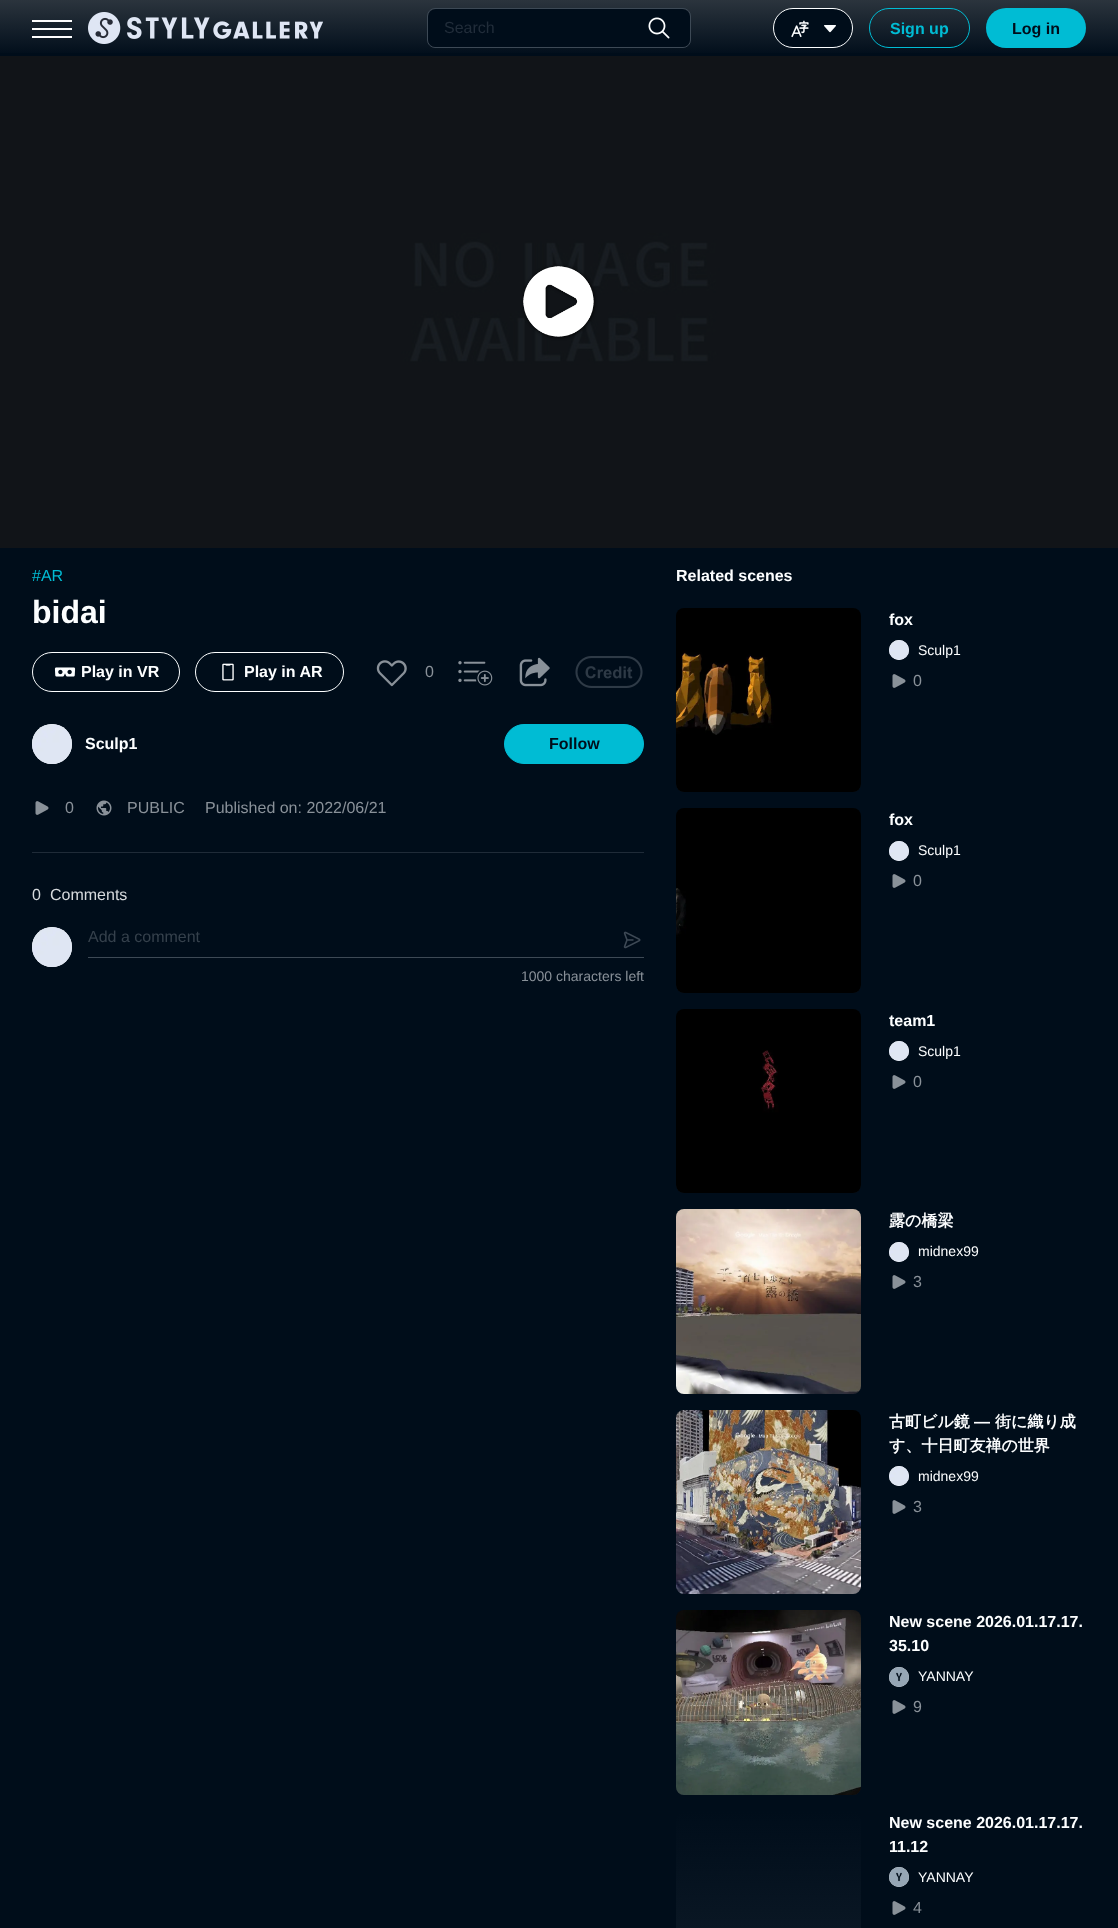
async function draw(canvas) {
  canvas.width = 1118
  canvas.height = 1928
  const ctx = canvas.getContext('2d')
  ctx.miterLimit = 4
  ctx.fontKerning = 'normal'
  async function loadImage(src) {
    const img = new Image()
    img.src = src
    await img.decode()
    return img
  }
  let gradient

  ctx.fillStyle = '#000d1a'
  ctx.fillRect(0, 0, 1118, 1928)
  gradient = ctx.createLinearGradient(559, 0, 559, 56)
  gradient.addColorStop(0, '#2b343d')
  gradient.addColorStop(1, '#000d1a')
  ctx.fillStyle = gradient
  ctx.fillRect(0, 0, 1118, 53)
  ctx.fillStyle = '#fff'
  ctx.fillRect(32, 20, 40, 2)
  ctx.fillRect(32, 28, 40, 2)
  ctx.fillRect(32, 36, 40, 2)
  ctx.drawImage(await loadImage('image0.png'), 88, 12, 235, 32)
  ctx.beginPath()
  ctx.roundRect(427.5, 8.5, 263, 39, 7.5)
  ctx.strokeStyle = '#3d4955'
  ctx.stroke()
  ctx.save()
  ctx.beginPath()
  ctx.roundRect(428, 9, 262, 38, 7)
  ctx.clip()
  ctx.fillStyle = '#000d1a'
  ctx.beginPath()
  ctx.roundRect(428, 9, 200, 38, [8, 0, 0, 8])
  ctx.fill()
  ctx.restore()
  ctx.font = '16px Liberation Sans'
  ctx.fillStyle = '#212d3a'
  ctx.fillText('Search', 444, 33)
  ctx.save()
  ctx.beginPath()
  ctx.roundRect(428, 9, 262, 38, 7)
  ctx.clip()
  ctx.fillStyle = '#000d1a'
  ctx.beginPath()
  ctx.roundRect(628, 9, 62, 38, [0, 8, 8, 0])
  ctx.fill()
  ctx.restore()
  ctx.drawImage(await loadImage('image1.png'), 648, 17, 22, 22)
  ctx.fillStyle = '#000d1a'
  ctx.beginPath()
  ctx.roundRect(773.5, 8.5, 79, 39, 19.5)
  ctx.fill()
  ctx.strokeStyle = '#fcfeff'
  ctx.stroke()
  ctx.drawImage(await loadImage('image2.png'), 791, 20, 18, 18)
  ctx.drawImage(await loadImage('image3.png'), 824, 25, 12, 8)
  ctx.beginPath()
  ctx.roundRect(869.5, 8.5, 100, 39, 19.5)
  ctx.strokeStyle = '#00bcd4'
  ctx.stroke()
  ctx.font = 'bold 16px Liberation Sans'
  ctx.fillStyle = '#00bcd4'
  ctx.fillText('Sign up', 890, 34)
  ctx.beginPath()
  ctx.roundRect(986, 8, 100, 40, 20)
  ctx.fill()
  ctx.fillStyle = '#000d1a'
  ctx.fillText('Log in', 1012, 34)
  ctx.drawImage(await loadImage('image4.png'), 0, 56, 1118, 492)
  ctx.font = '16px Liberation Sans'
  ctx.fillStyle = '#00bcd4'
  ctx.fillText('#AR', 32, 581)
  ctx.font = 'bold 32px Liberation Sans'
  ctx.fillStyle = '#fcfeff'
  ctx.fillText('bidai', 32, 623)
  ctx.beginPath()
  ctx.roundRect(32.5, 652.5, 147, 39, 19.5)
  ctx.strokeStyle = '#fcfeff'
  ctx.stroke()
  ctx.drawImage(await loadImage('image5.png'), 54, 667, 22, 10)
  ctx.font = 'bold 16px Liberation Sans'
  ctx.fillText('Play in VR', 81, 677)
  ctx.beginPath()
  ctx.roundRect(195.5, 652.5, 148, 39, 19.5)
  ctx.stroke()
  ctx.drawImage(await loadImage('image6.png'), 222, 663, 12, 18)
  ctx.fillText('Play in AR', 244, 677)
  ctx.drawImage(await loadImage('image7.png'), 376, 660, 31, 27)
  ctx.font = '16px Liberation Sans'
  ctx.fillStyle = '#899199'
  ctx.fillText('0', 425, 677)
  ctx.drawImage(await loadImage('image8.png'), 458, 661, 35, 25)
  ctx.drawImage(await loadImage('image9.png'), 519, 657, 31, 30)
  ctx.drawImage(await loadImage('image10.png'), 575, 656, 68, 32)
  ctx.fillStyle = '#fff'
  ctx.beginPath()
  ctx.arc(52, 744, 20, 0, 2 * Math.PI)
  ctx.fill()
  ctx.drawImage(await loadImage('image11.png'), 32, 724, 40, 40)
  ctx.font = 'bold 16px Liberation Sans'
  ctx.fillStyle = '#fcfeff'
  ctx.fillText('Sculp1', 85, 749)
  ctx.fillStyle = '#00bcd4'
  ctx.beginPath()
  ctx.roundRect(504.5, 724.5, 139, 39, 19.5)
  ctx.fill()
  ctx.strokeStyle = '#00bcd4'
  ctx.stroke()
  ctx.fillStyle = '#000d1a'
  ctx.fillText('Follow', 549, 749)
  ctx.drawImage(await loadImage('image12.png'), 35, 801, 14, 14)
  ctx.font = '16px Liberation Sans'
  ctx.fillStyle = '#899199'
  ctx.fillText('0', 65, 813)
  ctx.drawImage(await loadImage('image13.png'), 96, 800, 16, 16)
  ctx.fillText('PUBLIC', 127, 813)
  ctx.fillText('Published on: 2022/06/21', 205, 813)
  ctx.fillStyle = '#1f2b38'
  ctx.fillRect(32, 852, 612, 1)
  ctx.fillStyle = '#d6dadd'
  ctx.fillText('0', 32, 900)
  ctx.fillText('Comments', 50, 900)
  ctx.fillStyle = '#fff'
  ctx.beginPath()
  ctx.arc(52, 947, 20, 0, 2 * Math.PI)
  ctx.fill()
  ctx.drawImage(await loadImage('image11.png'), 32, 927, 40, 40)
  ctx.fillStyle = '#3d4955'
  ctx.fillRect(88, 957, 556, 1)
  ctx.fillStyle = '#35414c'
  ctx.fillText('Add a comment', 88, 942)
  ctx.drawImage(await loadImage('image14.png'), 623, 931, 18, 18)
  ctx.font = '14px Liberation Sans'
  ctx.fillStyle = '#899199'
  ctx.fillText('1000 characters left', 521, 981)
  ctx.font = 'bold 16px Liberation Sans'
  ctx.fillStyle = '#fcfeff'
  ctx.fillText('Related scenes', 676, 581)
  gradient = ctx.createLinearGradient(769, 792, 769, 608)
  gradient.addColorStop(0, '#0f1c29')
  gradient.addColorStop(1, '#000d1a')
  ctx.fillStyle = gradient
  ctx.beginPath()
  ctx.roundRect(676, 608, 185, 184, 8)
  ctx.fill()
  ctx.drawImage(await loadImage('image15.png'), 676, 608, 185, 184)
  ctx.fillStyle = '#fcfeff'
  ctx.fillText('fox', 889, 625)
  ctx.fillStyle = '#fff'
  ctx.beginPath()
  ctx.arc(899, 650, 10, 0, 2 * Math.PI)
  ctx.fill()
  ctx.drawImage(await loadImage('image16.png'), 889, 640, 20, 20)
  ctx.font = '14px Liberation Sans'
  ctx.fillStyle = '#fcfeff'
  ctx.fillText('Sculp1', 918, 655)
  ctx.drawImage(await loadImage('image12.png'), 892, 674, 14, 14)
  ctx.font = '16px Liberation Sans'
  ctx.fillStyle = '#899199'
  ctx.fillText('0', 913, 686)
  gradient = ctx.createLinearGradient(769, 993, 769, 808)
  gradient.addColorStop(0, '#0f1c29')
  gradient.addColorStop(1, '#000d1a')
  ctx.fillStyle = gradient
  ctx.beginPath()
  ctx.roundRect(676, 808, 185, 185, 8)
  ctx.fill()
  ctx.drawImage(await loadImage('image17.png'), 676, 808, 185, 185)
  ctx.font = 'bold 16px Liberation Sans'
  ctx.fillStyle = '#fcfeff'
  ctx.fillText('fox', 889, 825)
  ctx.fillStyle = '#fff'
  ctx.beginPath()
  ctx.arc(899, 851, 10, 0, 2 * Math.PI)
  ctx.fill()
  ctx.drawImage(await loadImage('image16.png'), 889, 841, 20, 20)
  ctx.font = '14px Liberation Sans'
  ctx.fillStyle = '#fcfeff'
  ctx.fillText('Sculp1', 918, 855)
  ctx.drawImage(await loadImage('image12.png'), 892, 874, 14, 14)
  ctx.font = '16px Liberation Sans'
  ctx.fillStyle = '#899199'
  ctx.fillText('0', 913, 886)
  gradient = ctx.createLinearGradient(769, 1193, 769, 1009)
  gradient.addColorStop(0, '#0f1c29')
  gradient.addColorStop(1, '#000d1a')
  ctx.fillStyle = gradient
  ctx.beginPath()
  ctx.roundRect(676, 1009, 185, 184, 8)
  ctx.fill()
  ctx.drawImage(await loadImage('image18.png'), 676, 1009, 185, 184)
  ctx.font = 'bold 16px Liberation Sans'
  ctx.fillStyle = '#fcfeff'
  ctx.fillText('team1', 889, 1026)
  ctx.fillStyle = '#fff'
  ctx.beginPath()
  ctx.arc(899, 1051, 10, 0, 2 * Math.PI)
  ctx.fill()
  ctx.drawImage(await loadImage('image16.png'), 889, 1041, 20, 20)
  ctx.font = '14px Liberation Sans'
  ctx.fillStyle = '#fcfeff'
  ctx.fillText('Sculp1', 918, 1056)
  ctx.drawImage(await loadImage('image12.png'), 892, 1075, 14, 14)
  ctx.font = '16px Liberation Sans'
  ctx.fillStyle = '#899199'
  ctx.fillText('0', 913, 1087)
  gradient = ctx.createLinearGradient(769, 1394, 769, 1209)
  gradient.addColorStop(0, '#0f1c29')
  gradient.addColorStop(1, '#000d1a')
  ctx.fillStyle = gradient
  ctx.beginPath()
  ctx.roundRect(676, 1209, 185, 185, 8)
  ctx.fill()
  ctx.drawImage(await loadImage('image19.png'), 676, 1209, 185, 185)
  ctx.font = 'bold 16px WenQuanYi Zen Hei'
  ctx.fillStyle = '#fcfeff'
  ctx.fillText('露の橋梁', 889, 1226)
  ctx.fillStyle = '#fff'
  ctx.beginPath()
  ctx.arc(899, 1252, 10, 0, 2 * Math.PI)
  ctx.fill()
  ctx.drawImage(await loadImage('image16.png'), 889, 1242, 20, 20)
  ctx.font = '14px Liberation Sans'
  ctx.fillStyle = '#fcfeff'
  ctx.fillText('midnex99', 918, 1256)
  ctx.drawImage(await loadImage('image12.png'), 892, 1275, 14, 14)
  ctx.font = '16px Liberation Sans'
  ctx.fillStyle = '#899199'
  ctx.fillText('3', 913, 1287)
  gradient = ctx.createLinearGradient(769, 1594, 769, 1410)
  gradient.addColorStop(0, '#0f1c29')
  gradient.addColorStop(1, '#000d1a')
  ctx.fillStyle = gradient
  ctx.beginPath()
  ctx.roundRect(676, 1410, 185, 184, 8)
  ctx.fill()
  ctx.drawImage(await loadImage('image20.png'), 676, 1410, 185, 184)
  ctx.font = 'bold 16px WenQuanYi Zen Hei'
  ctx.fillStyle = '#fcfeff'
  ctx.fillText('古町ビル鏡', 889, 1427)
  ctx.font = 'bold 16px Liberation Sans'
  ctx.fillText('―', 974, 1427)
  ctx.font = 'bold 16px WenQuanYi Zen Hei'
  ctx.fillText('街に織り成', 995, 1427)
  ctx.fillText('す、十日町友禅の世界', 889, 1451)
  ctx.fillStyle = '#fff'
  ctx.beginPath()
  ctx.arc(899, 1476, 10, 0, 2 * Math.PI)
  ctx.fill()
  ctx.drawImage(await loadImage('image16.png'), 889, 1466, 20, 20)
  ctx.font = '14px Liberation Sans'
  ctx.fillStyle = '#fcfeff'
  ctx.fillText('midnex99', 918, 1481)
  ctx.drawImage(await loadImage('image12.png'), 892, 1500, 14, 14)
  ctx.font = '16px Liberation Sans'
  ctx.fillStyle = '#899199'
  ctx.fillText('3', 913, 1512)
  gradient = ctx.createLinearGradient(769, 1795, 769, 1610)
  gradient.addColorStop(0, '#0f1c29')
  gradient.addColorStop(1, '#000d1a')
  ctx.fillStyle = gradient
  ctx.beginPath()
  ctx.roundRect(676, 1610, 185, 185, 8)
  ctx.fill()
  ctx.drawImage(await loadImage('image21.png'), 676, 1610, 185, 185)
  ctx.font = 'bold 16px Liberation Sans'
  ctx.fillStyle = '#fcfeff'
  ctx.fillText('New scene 2026.01.17.17.', 889, 1627)
  ctx.fillText('35.10', 889, 1651)
  ctx.fillStyle = '#fff'
  ctx.beginPath()
  ctx.arc(899, 1677, 10, 0, 2 * Math.PI)
  ctx.fill()
  ctx.drawImage(await loadImage('image22.png'), 889, 1667, 20, 20)
  ctx.font = '14px Liberation Sans'
  ctx.fillStyle = '#fcfeff'
  ctx.fillText('YANNAY', 918, 1681)
  ctx.drawImage(await loadImage('image12.png'), 892, 1700, 14, 14)
  ctx.font = '16px Liberation Sans'
  ctx.fillStyle = '#899199'
  ctx.fillText('9', 913, 1712)
  gradient = ctx.createLinearGradient(769, 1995, 769, 1811)
  gradient.addColorStop(0, '#0f1c29')
  gradient.addColorStop(1, '#000d1a')
  ctx.fillStyle = gradient
  ctx.beginPath()
  ctx.roundRect(676, 1811, 185, 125, 8)
  ctx.fill()
  ctx.font = 'bold 16px Liberation Sans'
  ctx.fillStyle = '#fcfeff'
  ctx.fillText('New scene 2026.01.17.17.', 889, 1828)
  ctx.fillText('11.12', 889, 1852)
  ctx.fillStyle = '#fff'
  ctx.beginPath()
  ctx.arc(899, 1877, 10, 0, 2 * Math.PI)
  ctx.fill()
  ctx.drawImage(await loadImage('image22.png'), 889, 1867, 20, 20)
  ctx.font = '14px Liberation Sans'
  ctx.fillStyle = '#fcfeff'
  ctx.fillText('YANNAY', 918, 1882)
  ctx.drawImage(await loadImage('image12.png'), 892, 1901, 14, 14)
  ctx.font = '16px Liberation Sans'
  ctx.fillStyle = '#899199'
  ctx.fillText('4', 913, 1913)
}

draw(document.querySelector('canvas'))
